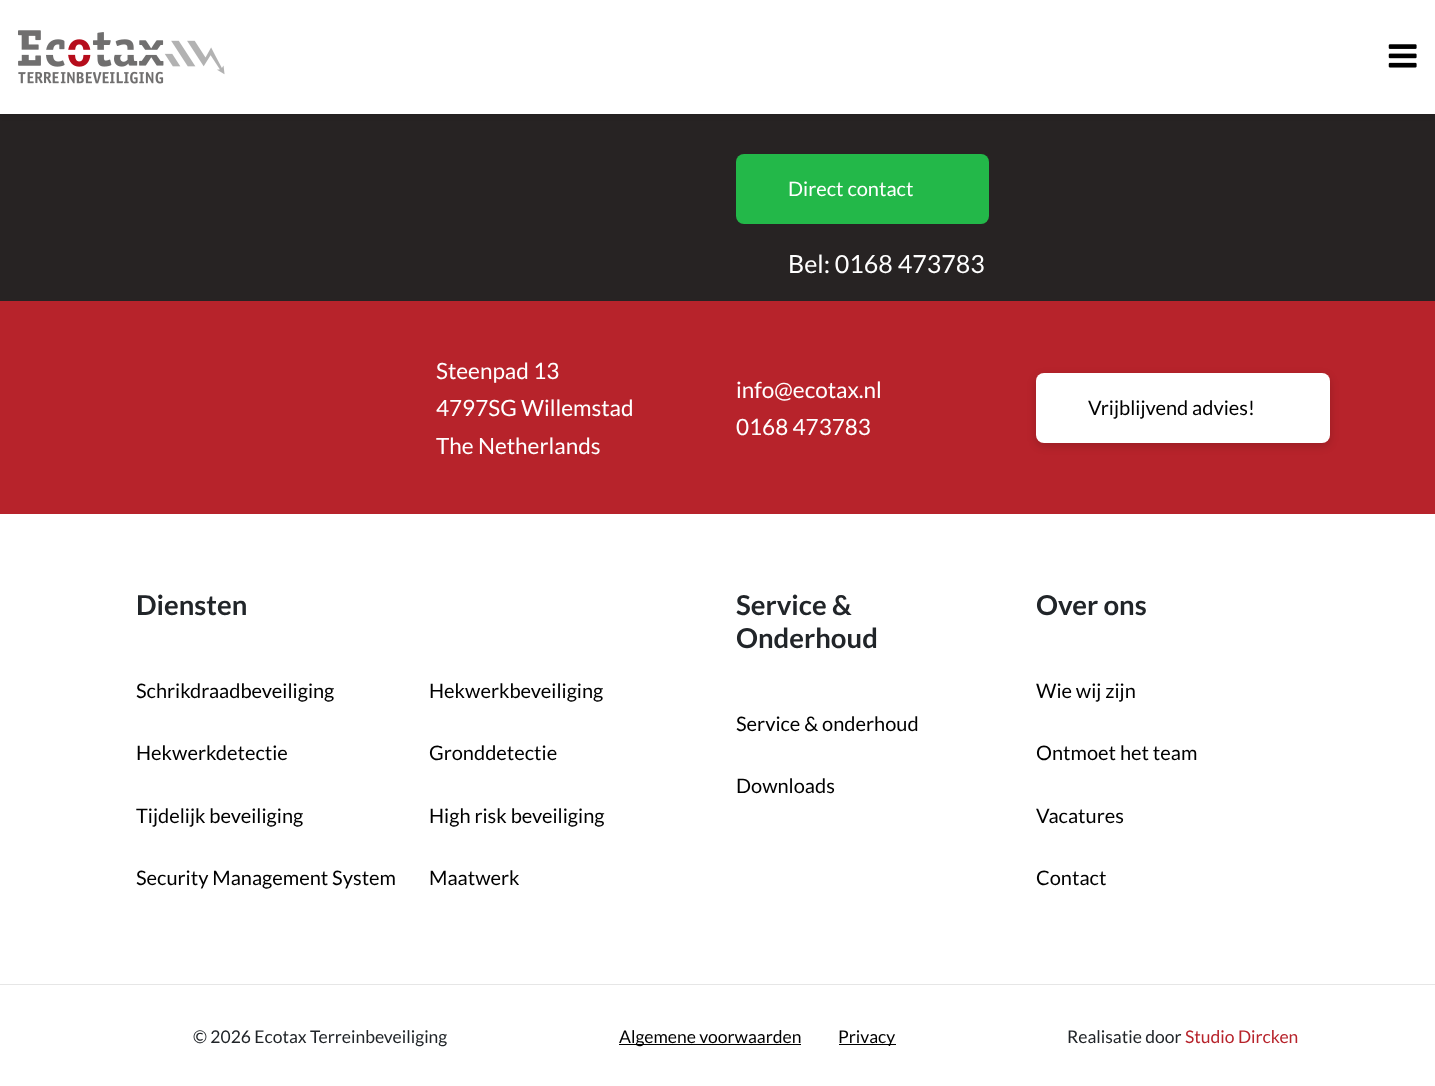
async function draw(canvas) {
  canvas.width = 1435
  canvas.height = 1086
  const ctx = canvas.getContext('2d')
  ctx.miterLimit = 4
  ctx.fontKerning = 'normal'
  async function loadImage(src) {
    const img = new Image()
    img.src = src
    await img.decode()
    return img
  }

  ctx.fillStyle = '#fff'
  ctx.fillRect(0, 0, 1435, 1086)
  ctx.fillStyle = '#272323'
  ctx.fillRect(0, 114, 1435, 187)
  ctx.fillStyle = '#00000029'
  ctx.filter = 'blur(3px)'
  ctx.beginPath()
  ctx.rect(0, 0, 1435, 114)
  ctx.fill()
  ctx.filter = 'none'
  ctx.fillStyle = '#fff'
  ctx.fillRect(0, 0, 1435, 114)
  ctx.drawImage(await loadImage('image0.png'), 18, 30, 207, 54)
  ctx.drawImage(await loadImage('image1.png'), 1388, 44, 29, 24)
  ctx.fillStyle = '#23b849'
  ctx.beginPath()
  ctx.roundRect(736, 154, 253, 70, 8)
  ctx.fill()
  ctx.font = '20px Lato'
  ctx.fillStyle = '#fff'
  ctx.fillText('Direct contact', 788, 196)
  ctx.font = '25px Lato'
  ctx.fillText('Bel: 0168 473783', 788, 273)
  ctx.fillStyle = '#b7232b'
  ctx.fillRect(0, 301, 1435, 213)
  ctx.font = '22.5px Lato'
  ctx.fillStyle = '#fff'
  ctx.fillText('Steenpad 13', 436, 379)
  ctx.fillText('4797SG Willemstad', 436, 416)
  ctx.fillText('The Netherlands', 436, 454)
  ctx.fillText('info@ecotax.nl', 736, 398)
  ctx.fillText('0168 473783', 736, 435)
  ctx.fillStyle = '#00000029'
  ctx.filter = 'blur(4px)'
  ctx.beginPath()
  ctx.roundRect(1036, 376, 294, 70, 8)
  ctx.fill()
  ctx.filter = 'none'
  ctx.fillStyle = '#fff'
  ctx.beginPath()
  ctx.roundRect(1036, 373, 294, 70, 8)
  ctx.fill()
  ctx.font = '20px Lato'
  ctx.fillStyle = '#000'
  ctx.fillText('Vrijblijvend advies!', 1088, 415)
  ctx.fillStyle = '#e6e6e6'
  ctx.fillRect(0, 984, 1435, 1)
  ctx.font = 'bold 27.5px Lato'
  ctx.fillStyle = '#212529'
  ctx.fillText('Diensten', 136, 615)
  ctx.font = '20px Lato'
  ctx.fillStyle = '#000'
  ctx.fillText('Schrikdraadbeveiliging', 136, 698)
  ctx.fillText('Hekwerkbeveiliging', 429, 698)
  ctx.fillText('Hekwerkdetectie', 136, 760)
  ctx.fillText('Gronddetectie', 429, 760)
  ctx.fillText('Tijdelijk beveiliging', 136, 823)
  ctx.fillText('High risk beveiliging', 429, 823)
  ctx.fillText('Security Management System', 136, 885)
  ctx.fillText('Maatwerk', 429, 885)
  ctx.font = 'bold 27.5px Lato'
  ctx.fillStyle = '#212529'
  ctx.fillText('Service &', 736, 615)
  ctx.fillText('Onderhoud', 736, 648)
  ctx.font = '20px Lato'
  ctx.fillStyle = '#000'
  ctx.fillText('Service & onderhoud', 736, 731)
  ctx.fillText('Downloads', 736, 793)
  ctx.font = 'bold 27.5px Lato'
  ctx.fillStyle = '#212529'
  ctx.fillText('Over ons', 1036, 615)
  ctx.font = '20px Lato'
  ctx.fillStyle = '#000'
  ctx.fillText('Wie wij zijn', 1036, 698)
  ctx.fillText('Ontmoet het team', 1036, 760)
  ctx.fillText('Vacatures', 1036, 823)
  ctx.fillText('Contact', 1036, 885)
  ctx.font = '17.5px Lato'
  ctx.fillStyle = '#212529'
  ctx.fillText('© 2026 Ecotax Terreinbeveiliging', 193, 1043)
  ctx.fillStyle = '#000'
  ctx.fillRect(619, 1044, 182, 1)
  ctx.fillText('Algemene voorwaarden', 619, 1043)
  ctx.fillRect(839, 1044, 57, 1)
  ctx.fillText('Privacy', 838, 1043)
  ctx.fillStyle = '#212529'
  ctx.fillText('Realisatie door', 1067, 1043)
  ctx.fillStyle = '#b7232b'
  ctx.fillText('Studio Dircken', 1185, 1043)
}

draw(document.querySelector('canvas'))
